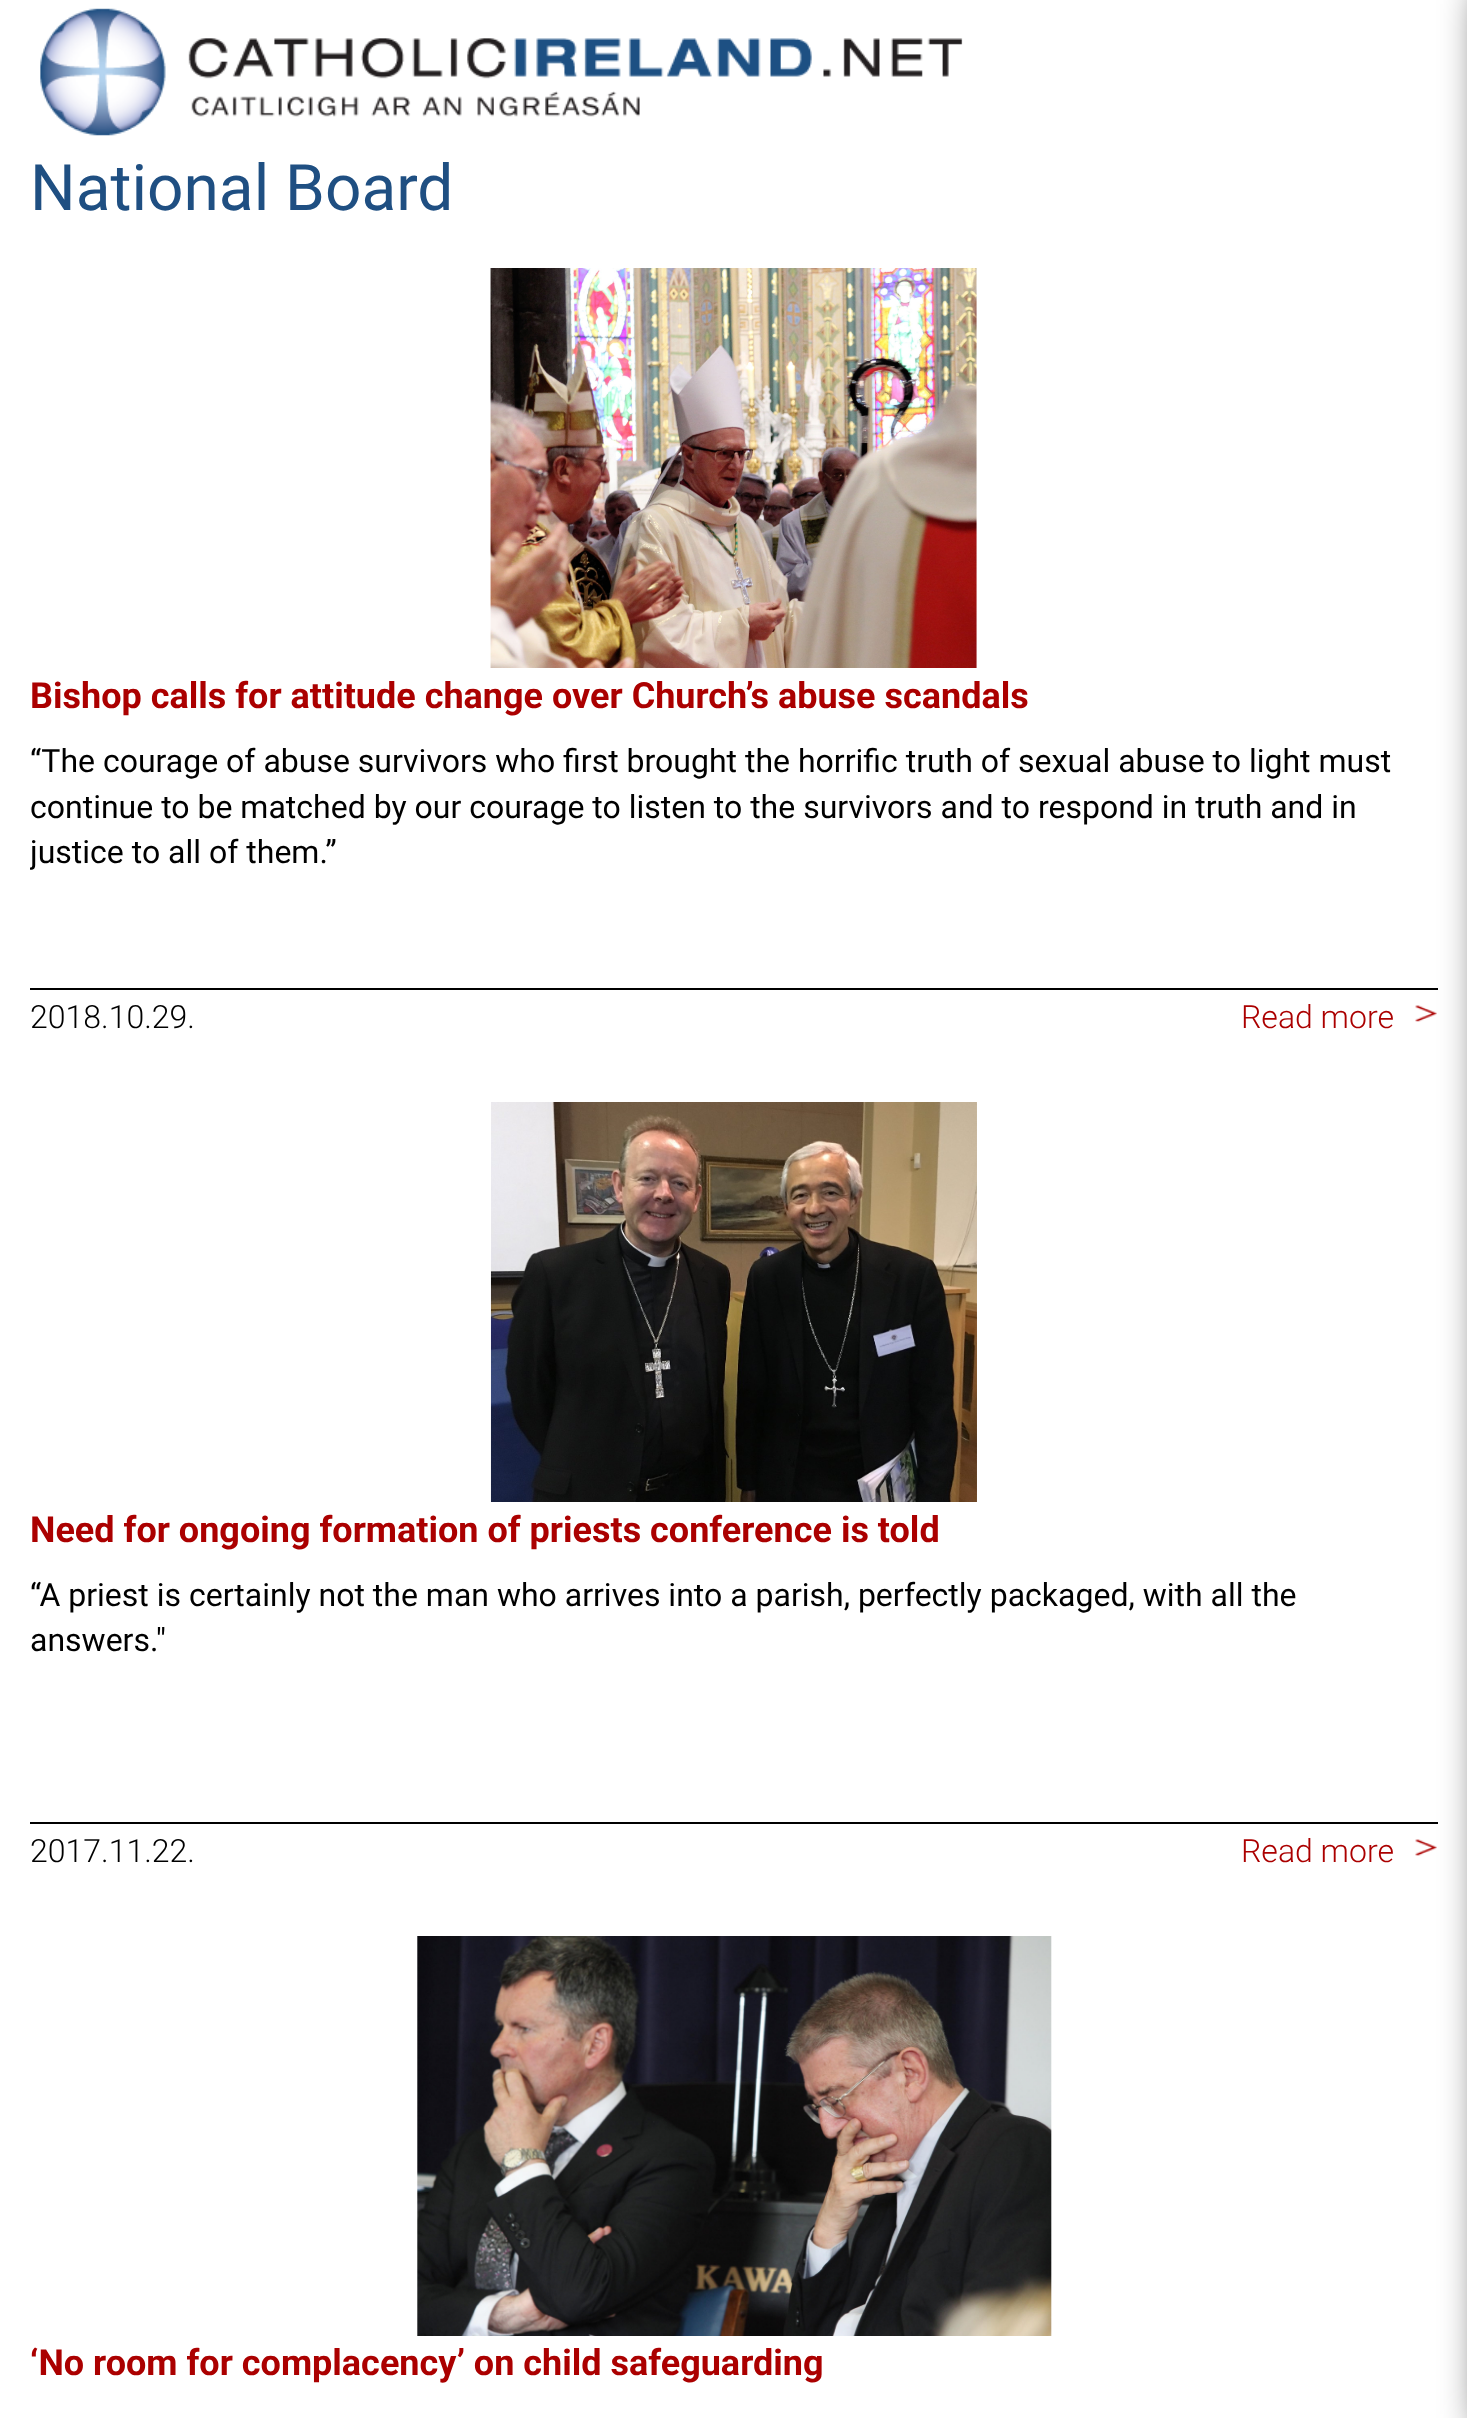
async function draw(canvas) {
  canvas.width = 1467
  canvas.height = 2418
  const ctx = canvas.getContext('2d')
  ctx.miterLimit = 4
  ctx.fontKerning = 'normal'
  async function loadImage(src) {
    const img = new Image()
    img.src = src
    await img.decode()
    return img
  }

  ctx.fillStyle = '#fff'
  ctx.fillRect(0, 0, 1467, 2418)
  ctx.drawImage(await loadImage('image0.png'), 40, 8, 923, 128)
  ctx.font = '64px Roboto'
  ctx.fillStyle = '#1f4f82'
  ctx.fillText('National Board', 30, 210)
  ctx.drawImage(await loadImage('image1.png'), 490, 268, 487, 400)
  ctx.font = 'bold 36px Roboto'
  ctx.fillStyle = '#ab0000'
  ctx.fillText('Bishop calls for attitude change over Church’s abuse scandals', 30, 708)
  ctx.font = '32px Roboto'
  ctx.fillStyle = '#000'
  ctx.fillText('“The courage of abuse survivors who first brought the horrific truth of sexual abuse to light must', 30, 772)
  ctx.fillText('continue to be matched by our courage to listen to the survivors and to respond in truth and in', 30, 818)
  ctx.save()
  ctx.beginPath()
  ctx.rect(30, 668, 1408, 320)
  ctx.clip()
  ctx.fillText('justice to all of them.”', 30, 863)
  ctx.restore()
  ctx.fillRect(30, 988, 1408, 2)
  ctx.font = '300 32px Roboto'
  ctx.fillText('2018.10.29.', 30, 1028)
  ctx.fillStyle = '#ab0000'
  ctx.fillText('Read more', 1241, 1028)
  ctx.drawImage(await loadImage('image2.png'), 1415, 1005, 22, 17)
  ctx.drawImage(await loadImage('image3.png'), 490, 1102, 487, 400)
  ctx.font = 'bold 36px Roboto'
  ctx.fillText('Need for ongoing formation of priests conference is told', 30, 1542)
  ctx.font = '32px Roboto'
  ctx.fillStyle = '#000'
  ctx.fillText('“A priest is certainly not the man who arrives into a parish, perfectly packaged, with all the', 30, 1606)
  ctx.fillText('answers."', 30, 1651)
  ctx.fillRect(30, 1822, 1408, 2)
  ctx.font = '300 32px Roboto'
  ctx.fillText('2017.11.22.', 30, 1862)
  ctx.fillStyle = '#ab0000'
  ctx.fillText('Read more', 1241, 1862)
  ctx.drawImage(await loadImage('image4.png'), 1415, 1839, 22, 17)
  ctx.drawImage(await loadImage('image5.png'), 417, 1936, 635, 400)
  ctx.font = 'bold 36px Roboto'
  ctx.fillText('‘No room for complacency’ on child safeguarding', 30, 2375)
  ctx.fillStyle = '#000'
  ctx.filter = 'blur(21px)'
  ctx.beginPath()
  ctx.rect(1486, -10, 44, 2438)
  ctx.fill()
  ctx.filter = 'none'
}

draw(document.querySelector('canvas'))
